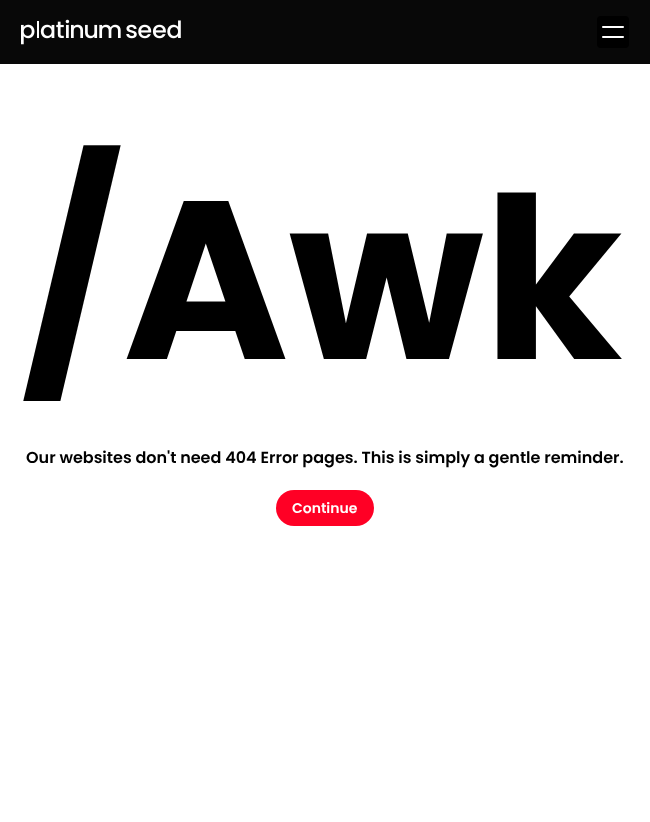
async function draw(canvas) {
  canvas.width = 650
  canvas.height = 822
  const ctx = canvas.getContext('2d')
  ctx.miterLimit = 4
  ctx.fontKerning = 'normal'
  async function loadImage(src) {
    const img = new Image()
    img.src = src
    await img.decode()
    return img
  }

  ctx.fillStyle = '#fff'
  ctx.fillRect(0, 0, 650, 822)
  ctx.fillStyle = '#080808'
  ctx.fillRect(0, 0, 650, 64)
  ctx.drawImage(await loadImage('image0.png'), 21, 19, 160, 26)
  ctx.fillStyle = '#000'
  ctx.beginPath()
  ctx.roundRect(597, 16, 32, 32, 4)
  ctx.fill()
  ctx.drawImage(await loadImage('image1.png'), 602, 26, 22, 12)
  ctx.font = 'bold 225px Poppins'
  ctx.fillText('/Awk', 21, 359)
  ctx.font = '600 16px Poppins'
  ctx.fillText('Our websites don\'t need 404 Error pages. This is simply a gentle reminder.', 26, 463)
  ctx.fillStyle = '#ff0025'
  ctx.beginPath()
  ctx.roundRect(276, 490, 98, 36, 18)
  ctx.fill()
  ctx.font = '600 14px Poppins'
  ctx.fillStyle = '#fff'
  ctx.fillText('Continue', 292, 513)
}

draw(document.querySelector('canvas'))
